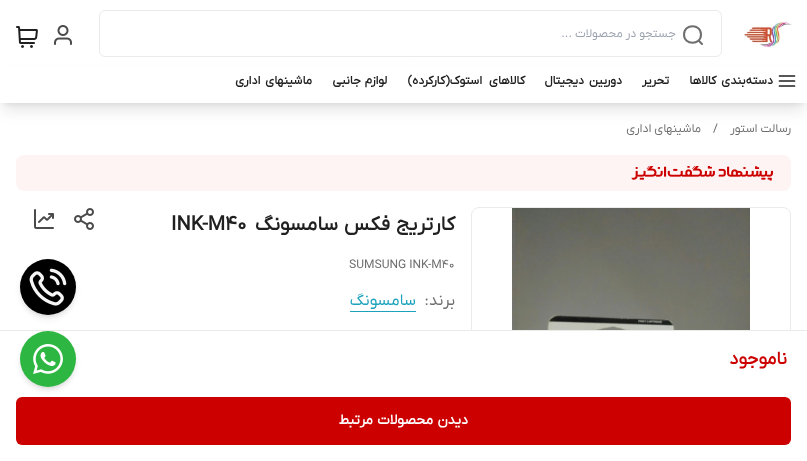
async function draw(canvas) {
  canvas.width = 807
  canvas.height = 461
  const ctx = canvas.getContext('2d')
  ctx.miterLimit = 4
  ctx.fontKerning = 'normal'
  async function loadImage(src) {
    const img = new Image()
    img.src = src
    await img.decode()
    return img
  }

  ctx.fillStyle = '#fff'
  ctx.fillRect(0, 0, 807, 461)
  ctx.drawImage(await loadImage('image0.png'), 744, 21, 48, 27)
  ctx.fillStyle = '#0000001a'
  ctx.filter = 'blur(7.5px)'
  ctx.beginPath()
  ctx.rect(3, 78, 801, 32)
  ctx.fill()
  ctx.filter = 'none'
  ctx.beginPath()
  ctx.roundRect(99.5, 10.5, 622, 46, 5.5)
  ctx.strokeStyle = '#ebebeb'
  ctx.stroke()
  ctx.beginPath()
  ctx.moveTo(702, 44)
  ctx.lineTo(698.5, 40.5)
  ctx.moveTo(701, 34.5)
  ctx.bezierCurveTo(701, 45.5, 684, 45.5, 684, 34.5)
  ctx.bezierCurveTo(684, 23.5, 701, 23.5, 701, 34.5)
  ctx.strokeStyle = '#6e6e6e'
  ctx.lineWidth = 2
  ctx.lineCap = 'round'
  ctx.lineJoin = 'round'
  ctx.stroke()
  ctx.direction = 'rtl'
  ctx.font = '12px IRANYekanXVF'
  ctx.fillStyle = '#9ca3af'
  ctx.fillText('جستجو در محصولات ...', 676, 37)
  ctx.drawImage(await loadImage('image1.png'), 54, 25, 18, 20)
  ctx.drawImage(await loadImage('image2.png'), 16, 26, 22, 22)
  ctx.fillStyle = '#0000001a'
  ctx.filter = 'blur(3px)'
  ctx.beginPath()
  ctx.rect(4, 73, 799, 30)
  ctx.fill()
  ctx.filter = 'none'
  ctx.fillStyle = '#fff'
  ctx.fillRect(0, 67, 807, 36)
  ctx.beginPath()
  ctx.moveTo(779.5, 81)
  ctx.lineTo(794.5, 81)
  ctx.moveTo(779.5, 76)
  ctx.lineTo(794.5, 76)
  ctx.moveTo(779.5, 86)
  ctx.lineTo(794.5, 86)
  ctx.strokeStyle = '#202021'
  ctx.lineWidth = 1.7
  ctx.stroke()
  ctx.wordSpacing = '2px'
  ctx.font = 'bold 12px IRANYekanXVF'
  ctx.fillStyle = '#202021'
  ctx.fillText('دسته‌بندی کالاها', 773, 84)
  ctx.wordSpacing = '0px'
  ctx.fillText('تحریر', 669, 84)
  ctx.wordSpacing = '2px'
  ctx.fillText('دوربین دیجیتال', 622, 84)
  ctx.wordSpacing = '4px'
  ctx.fillText('کالاهای استوک(کارکرده)', 525, 84)
  ctx.wordSpacing = '1px'
  ctx.fillText('لوازم جانبی', 387, 84)
  ctx.wordSpacing = '2px'
  ctx.fillText('ماشینهای اداری', 312, 84)
  ctx.wordSpacing = '0px'
  ctx.font = '12px IRANYekanXVF'
  ctx.fillStyle = '#6e6e6e'
  ctx.fillText('رسالت استور', 791, 132)
  ctx.direction = 'ltr'
  ctx.fillText('/', 713, 132)
  ctx.direction = 'rtl'
  ctx.fillText('ماشینهای اداری', 701, 132)
  ctx.fillStyle = '#fff4f4'
  ctx.beginPath()
  ctx.roundRect(16, 155, 775, 36, 8)
  ctx.fill()
  ctx.drawImage(await loadImage('image3.png'), 631, 166, 142, 15)
  ctx.beginPath()
  ctx.roundRect(471.5, 207.5, 319, 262, 7.5)
  ctx.strokeStyle = '#ebebeb'
  ctx.lineWidth = 1
  ctx.lineJoin = 'miter'
  ctx.stroke()
  ctx.drawImage(await loadImage('image4.png'), 512, 208, 238, 122)
  ctx.wordSpacing = '1px'
  ctx.font = 'bold 20px IRANYekanXVF'
  ctx.fillStyle = '#202021'
  ctx.fillText('کارتریج فکس سامسونگ', 455, 230)
  ctx.wordSpacing = '0px'
  ctx.direction = 'ltr'
  ctx.font = 'bold 20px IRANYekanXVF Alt'
  ctx.fillText('INK-M40', 171, 230)
  ctx.drawImage(await loadImage('image5.png'), 74, 208, 20, 22)
  ctx.drawImage(await loadImage('image6.png'), 34, 209, 20, 20)
  ctx.font = '12px IRANYekanXVF Alt'
  ctx.fillStyle = '#6e6e6e'
  ctx.fillText('SUMSUNG INK-M40', 349, 268)
  ctx.direction = 'rtl'
  ctx.font = '16px IRANYekanXVF'
  ctx.fillText('برند:', 455, 305)
  ctx.fillStyle = '#1ca2bd'
  ctx.fillText('سامسونگ', 416, 305)
  ctx.fillRect(350, 311, 66, 1)
  ctx.fillStyle = '#fff'
  ctx.fillRect(471, 331, 320, 130)
  ctx.fillStyle = '#ebebeb'
  ctx.fillRect(0, 330, 807, 1)
  ctx.font = 'bold 18px IRANYekanXVF'
  ctx.fillStyle = '#cd0000'
  ctx.fillText('ناموجود', 787, 364)
  ctx.beginPath()
  ctx.roundRect(16, 397, 775, 48, 6)
  ctx.fill()
  ctx.wordSpacing = '1px'
  ctx.font = 'bold 14px IRANYekanXVF'
  ctx.fillStyle = '#fff'
  ctx.fillText('دیدن محصولات مرتبط', 468, 424)
  ctx.fillStyle = '#0000001a'
  ctx.filter = 'blur(2px)'
  ctx.beginPath()
  ctx.roundRect(22, 263, 52, 52, 26)
  ctx.fill()
  ctx.filter = 'none'
  ctx.filter = 'blur(3px)'
  ctx.beginPath()
  ctx.roundRect(21, 264, 54, 54, 27)
  ctx.fill()
  ctx.filter = 'none'
  ctx.fillStyle = '#000'
  ctx.beginPath()
  ctx.arc(48, 287, 28, 0, 2 * Math.PI)
  ctx.fill()
  ctx.drawImage(await loadImage('image7.png'), 29, 268, 38, 38)
  ctx.fillStyle = '#0000001a'
  ctx.filter = 'blur(2px)'
  ctx.beginPath()
  ctx.roundRect(22, 335, 52, 52, 26)
  ctx.fill()
  ctx.filter = 'none'
  ctx.filter = 'blur(3px)'
  ctx.beginPath()
  ctx.roundRect(21, 336, 54, 54, 27)
  ctx.fill()
  ctx.filter = 'none'
  ctx.fillStyle = '#2db742'
  ctx.beginPath()
  ctx.arc(48, 359, 28, 0, 2 * Math.PI)
  ctx.fill()
  ctx.drawImage(await loadImage('image8.png'), 33, 344, 30, 30)
}

draw(document.querySelector('canvas'))
